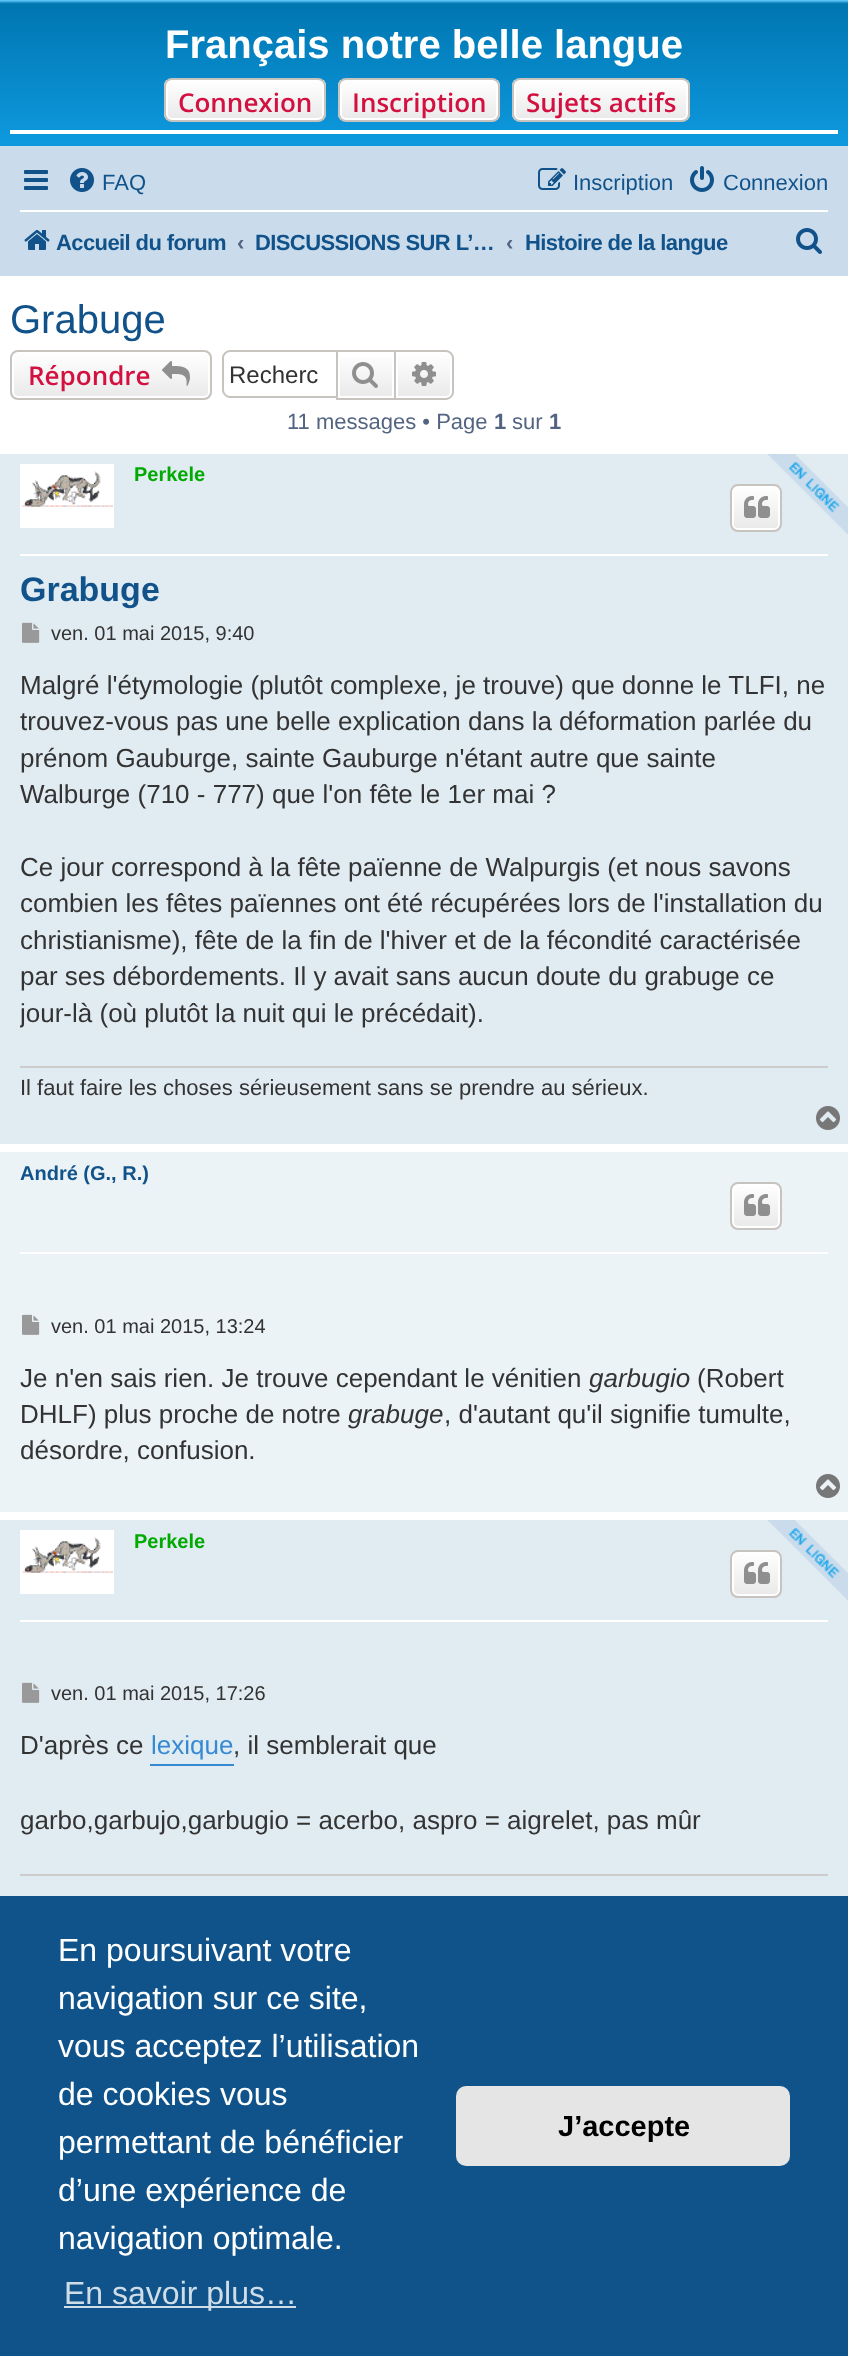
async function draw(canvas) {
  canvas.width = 848
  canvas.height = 2356
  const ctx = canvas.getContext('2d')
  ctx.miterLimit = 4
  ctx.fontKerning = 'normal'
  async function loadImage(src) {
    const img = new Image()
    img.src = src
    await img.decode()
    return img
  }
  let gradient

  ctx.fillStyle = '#fff'
  ctx.fillRect(0, 0, 848, 2356)
  gradient = ctx.createLinearGradient(424, 0, 424, 184)
  gradient.addColorStop(0, '#6aceff')
  gradient.addColorStop(0.02, '#0076b1')
  gradient.addColorStop(1, '#12a3eb')
  ctx.fillStyle = gradient
  ctx.fillRect(0, 0, 848, 146)
  ctx.font = 'bold 40px Liberation Sans'
  ctx.fillStyle = '#fff'
  ctx.fillText('Français notre belle langue', 165, 58)
  ctx.fillRect(10, 130, 828, 4)
  ctx.save()
  ctx.beginPath()
  ctx.roundRect(164, 78, 162, 44, 8)
  ctx.clip()
  gradient = ctx.createLinearGradient(245, 80, 245, 120)
  gradient.addColorStop(0, '#fff')
  gradient.addColorStop(1, '#e9e9e9')
  ctx.fillStyle = gradient
  ctx.fillRect(164, 80, 162, 40)
  ctx.restore()
  ctx.beginPath()
  ctx.roundRect(167, 81, 156, 38, 5)
  ctx.strokeStyle = '#fff'
  ctx.lineWidth = 2
  ctx.stroke()
  ctx.beginPath()
  ctx.roundRect(165, 79, 160, 42, 7)
  ctx.strokeStyle = '#c7c3bf'
  ctx.stroke()
  ctx.font = '600 26px Open Sans'
  ctx.fillStyle = '#d31141'
  ctx.fillText('Connexion', 178, 112)
  ctx.save()
  ctx.beginPath()
  ctx.roundRect(338, 78, 162, 44, 8)
  ctx.clip()
  gradient = ctx.createLinearGradient(419, 80, 419, 120)
  gradient.addColorStop(0, '#fff')
  gradient.addColorStop(1, '#e9e9e9')
  ctx.fillStyle = gradient
  ctx.fillRect(338, 80, 162, 40)
  ctx.restore()
  ctx.beginPath()
  ctx.roundRect(341, 81, 156, 38, 5)
  ctx.strokeStyle = '#fff'
  ctx.stroke()
  ctx.beginPath()
  ctx.roundRect(339, 79, 160, 42, 7)
  ctx.strokeStyle = '#c7c3bf'
  ctx.stroke()
  ctx.fillText('Inscription', 352, 112)
  ctx.save()
  ctx.beginPath()
  ctx.roundRect(512, 78, 178, 44, 8)
  ctx.clip()
  gradient = ctx.createLinearGradient(601, 80, 601, 120)
  gradient.addColorStop(0, '#fff')
  gradient.addColorStop(1, '#e9e9e9')
  ctx.fillStyle = gradient
  ctx.fillRect(512, 80, 178, 40)
  ctx.restore()
  ctx.beginPath()
  ctx.roundRect(515, 81, 172, 38, 5)
  ctx.strokeStyle = '#fff'
  ctx.stroke()
  ctx.beginPath()
  ctx.roundRect(513, 79, 176, 42, 7)
  ctx.strokeStyle = '#c7c3bf'
  ctx.stroke()
  ctx.fillText('Sujets actifs', 526, 112)
  ctx.fillStyle = '#cadceb'
  ctx.fillRect(0, 146, 848, 130)
  ctx.drawImage(await loadImage('image0.png'), 24, 170, 24, 20)
  ctx.drawImage(await loadImage('image1.png'), 70, 168, 24, 24)
  ctx.font = '22px Liberation Sans'
  ctx.fillStyle = '#105289'
  ctx.fillText('FAQ', 102, 190)
  ctx.drawImage(await loadImage('image2.png'), 538, 168, 28, 22)
  ctx.fillText('Inscription', 573, 190)
  ctx.drawImage(await loadImage('image3.png'), 690, 166, 24, 26)
  ctx.fillText('Connexion', 723, 190)
  ctx.fillStyle = '#fff'
  ctx.fillRect(20, 210, 808, 2)
  ctx.drawImage(await loadImage('image4.png'), 24, 230, 26, 20)
  ctx.letterSpacing = '-0.6px'
  ctx.font = 'bold 22px Liberation Sans'
  ctx.fillStyle = '#105289'
  ctx.fillText('Accueil du forum', 56, 250)
  ctx.letterSpacing = '0px'
  ctx.fillStyle = '#536482'
  ctx.fillText('‹', 237, 250)
  ctx.letterSpacing = '-0.6px'
  ctx.fillStyle = '#105289'
  ctx.fillText('DISCUSSIONS SUR L’…', 255, 250)
  ctx.letterSpacing = '0px'
  ctx.fillStyle = '#536482'
  ctx.fillText('‹', 506, 250)
  ctx.letterSpacing = '-0.6px'
  ctx.fillStyle = '#105289'
  ctx.fillText('Histoire de la langue', 525, 250)
  ctx.drawImage(await loadImage('image5.png'), 796, 228, 26, 26)
  ctx.letterSpacing = '0px'
  ctx.font = '40px Liberation Sans'
  ctx.fillText('Grabuge', 10, 333)
  ctx.save()
  ctx.beginPath()
  ctx.roundRect(10, 350, 202, 50, 8)
  ctx.clip()
  gradient = ctx.createLinearGradient(111, 352, 111, 398)
  gradient.addColorStop(0, '#fff')
  gradient.addColorStop(1, '#e9e9e9')
  ctx.fillStyle = gradient
  ctx.fillRect(10, 352, 202, 46)
  ctx.restore()
  ctx.beginPath()
  ctx.roundRect(13, 353, 196, 44, 5)
  ctx.strokeStyle = '#fff'
  ctx.stroke()
  ctx.beginPath()
  ctx.roundRect(11, 351, 200, 48, 7)
  ctx.strokeStyle = '#c7c3bf'
  ctx.stroke()
  ctx.font = '600 26px Open Sans'
  ctx.fillStyle = '#d31141'
  ctx.fillText('Répondre', 28, 385)
  ctx.drawImage(await loadImage('image6.png'), 162, 361, 28, 25)
  ctx.fillStyle = '#c7c3bf'
  ctx.beginPath()
  ctx.moveTo(230, 350)
  ctx.lineTo(336, 350)
  ctx.lineTo(336, 398)
  ctx.lineTo(230, 398)
  ctx.bezierCurveTo(226, 398, 222, 394, 222, 390)
  ctx.lineTo(222, 358)
  ctx.bezierCurveTo(222, 354, 226, 350, 230, 350)
  ctx.closePath()
  ctx.moveTo(230, 352)
  ctx.lineTo(336, 352)
  ctx.lineTo(336, 396)
  ctx.lineTo(230, 396)
  ctx.bezierCurveTo(227, 396, 224, 393, 224, 390)
  ctx.lineTo(224, 358)
  ctx.bezierCurveTo(224, 355, 227, 352, 230, 352)
  ctx.closePath()
  ctx.fill('evenodd')
  ctx.font = '24px Liberation Sans'
  ctx.fillStyle = '#333'
  ctx.fillText('Recherc', 229, 383)
  gradient = ctx.createLinearGradient(366, 352, 366, 398)
  gradient.addColorStop(0, '#fff')
  gradient.addColorStop(1, '#e9e9e9')
  ctx.fillStyle = gradient
  ctx.fillRect(340, 357, 52, 39)
  ctx.strokeRect(337, 351, 58, 48)
  ctx.drawImage(await loadImage('image7.png'), 352, 362, 26, 26)
  gradient = ctx.createLinearGradient(424, 352, 424, 398)
  gradient.addColorStop(0, '#fff')
  gradient.addColorStop(1, '#e9e9e9')
  ctx.fillStyle = gradient
  ctx.beginPath()
  ctx.roundRect(397, 353, 54, 44, [0, 5, 5, 0])
  ctx.fill()
  ctx.strokeStyle = '#fff'
  ctx.stroke()
  ctx.fillStyle = '#c7c3bf'
  ctx.beginPath()
  ctx.moveTo(396, 350)
  ctx.lineTo(446, 350)
  ctx.bezierCurveTo(450, 350, 454, 354, 454, 358)
  ctx.lineTo(454, 392)
  ctx.bezierCurveTo(454, 396, 450, 400, 446, 400)
  ctx.lineTo(396, 400)
  ctx.closePath()
  ctx.moveTo(396, 352)
  ctx.lineTo(446, 352)
  ctx.bezierCurveTo(449, 352, 452, 355, 452, 358)
  ctx.lineTo(452, 392)
  ctx.bezierCurveTo(452, 395, 449, 398, 446, 398)
  ctx.lineTo(396, 398)
  ctx.closePath()
  ctx.fill('evenodd')
  ctx.drawImage(await loadImage('image8.png'), 412, 362, 24, 24)
  ctx.font = '22px Liberation Sans'
  ctx.fillStyle = '#536482'
  ctx.fillText('11 messages • Page', 287, 429)
  ctx.font = 'bold 22px Liberation Sans'
  ctx.fillText('1', 494, 429)
  ctx.font = '22px Liberation Sans'
  ctx.fillText('sur', 512, 429)
  ctx.font = 'bold 22px Liberation Sans'
  ctx.fillText('1', 549, 429)
  ctx.fillStyle = '#e1ebf2'
  ctx.fillRect(0, 454, 848, 690)
  ctx.drawImage(await loadImage('image9.png'), 768, 454, 80, 80)
  ctx.fillStyle = '#fff'
  ctx.fillRect(20, 554, 808, 2)
  ctx.drawImage(await loadImage('image10.png'), 20, 464, 94, 64)
  ctx.font = 'bold 20px Liberation Sans'
  ctx.fillStyle = '#0a0'
  ctx.fillText('Perkele', 134, 481)
  ctx.save()
  ctx.beginPath()
  ctx.roundRect(730, 484, 52, 48, 8)
  ctx.clip()
  gradient = ctx.createLinearGradient(756, 486, 756, 530)
  gradient.addColorStop(0, '#fff')
  gradient.addColorStop(1, '#e9e9e9')
  ctx.fillStyle = gradient
  ctx.fillRect(730, 486, 52, 44)
  ctx.restore()
  ctx.beginPath()
  ctx.roundRect(733, 487, 46, 42, 5)
  ctx.stroke()
  ctx.beginPath()
  ctx.roundRect(731, 485, 50, 46, 7)
  ctx.strokeStyle = '#c7c3bf'
  ctx.stroke()
  ctx.drawImage(await loadImage('image11.png'), 744, 496, 26, 22)
  ctx.font = 'bold 34px Liberation Sans'
  ctx.fillStyle = '#105289'
  ctx.fillText('Grabuge', 20, 601)
  ctx.drawImage(await loadImage('image12.png'), 22, 622, 18, 21)
  ctx.font = '20px Liberation Sans'
  ctx.fillStyle = '#333'
  ctx.fillText('ven. 01 mai 2015, 9:40', 51, 640)
  ctx.font = '26px Liberation Sans'
  ctx.fillText('Malgré l\'étymologie (plutôt complexe, je trouve) que donne le TLFI, ne', 20, 694)
  ctx.fillText('trouvez-vous pas une belle explication dans la déformation parlée du', 20, 730)
  ctx.fillText('prénom Gauburge, sainte Gauburge n\'étant autre que sainte', 20, 767)
  ctx.fillText('Walburge (710 - 777) que l\'on fête le 1er mai ?', 20, 803)
  ctx.fillText('Ce jour correspond à la fête païenne de Walpurgis (et nous savons', 20, 876)
  ctx.fillText('combien les fêtes païennes ont été récupérées lors de l\'installation du', 20, 912)
  ctx.fillText('christianisme), fête de la fin de l\'hiver et de la fécondité caractérisée', 20, 949)
  ctx.fillText('par ses débordements. Il y avait sans aucun doute du grabuge ce', 20, 985)
  ctx.save()
  ctx.beginPath()
  ctx.rect(20, 668, 808, 366)
  ctx.clip()
  ctx.fillText('jour-là (où plutôt la nuit qui le précédait).', 20, 1022)
  ctx.restore()
  ctx.fillStyle = '#ccc'
  ctx.fillRect(20, 1066, 808, 2)
  ctx.font = '22px Liberation Sans'
  ctx.fillStyle = '#333'
  ctx.fillText('Il faut faire les choses sérieusement sans se prendre au sérieux.', 20, 1095)
  ctx.drawImage(await loadImage('image13.png'), 816, 1106, 24, 24)
  ctx.fillStyle = '#ecf3f7'
  ctx.fillRect(0, 1152, 848, 360)
  ctx.fillStyle = '#fff'
  ctx.fillRect(20, 1252, 808, 2)
  ctx.font = 'bold 20px Liberation Sans'
  ctx.fillStyle = '#105289'
  ctx.fillText('André (G., R.)', 20, 1180)
  ctx.save()
  ctx.beginPath()
  ctx.roundRect(730, 1182, 52, 48, 8)
  ctx.clip()
  gradient = ctx.createLinearGradient(756, 1184, 756, 1228)
  gradient.addColorStop(0, '#fff')
  gradient.addColorStop(1, '#e9e9e9')
  ctx.fillStyle = gradient
  ctx.fillRect(730, 1184, 52, 44)
  ctx.restore()
  ctx.beginPath()
  ctx.roundRect(733, 1185, 46, 42, 5)
  ctx.strokeStyle = '#fff'
  ctx.stroke()
  ctx.beginPath()
  ctx.roundRect(731, 1183, 50, 46, 7)
  ctx.strokeStyle = '#c7c3bf'
  ctx.stroke()
  ctx.drawImage(await loadImage('image11.png'), 744, 1194, 26, 22)
  ctx.drawImage(await loadImage('image14.png'), 22, 1314, 18, 21)
  ctx.font = '20px Liberation Sans'
  ctx.fillStyle = '#333'
  ctx.fillText('ven. 01 mai 2015, 13:24', 51, 1333)
  ctx.font = '26px Liberation Sans'
  ctx.fillText('Je n\'en sais rien. Je trouve cependant le vénitien', 20, 1387)
  ctx.font = 'italic 26px Liberation Sans'
  ctx.fillText('garbugio', 589, 1387)
  ctx.font = '26px Liberation Sans'
  ctx.fillText('(Robert', 697, 1387)
  ctx.fillText('DHLF) plus proche de notre', 20, 1423)
  ctx.font = 'italic 26px Liberation Sans'
  ctx.fillText('grabuge', 348, 1423)
  ctx.font = '26px Liberation Sans'
  ctx.fillText(', d\'autant qu\'il signifie tumulte,', 444, 1423)
  ctx.fillText('désordre, confusion.', 20, 1459)
  ctx.drawImage(await loadImage('image15.png'), 816, 1474, 24, 24)
  ctx.fillStyle = '#e1ebf2'
  ctx.fillRect(0, 1520, 848, 376)
  ctx.drawImage(await loadImage('image16.png'), 768, 1520, 80, 80)
  ctx.fillStyle = '#fff'
  ctx.fillRect(20, 1620, 808, 2)
  ctx.drawImage(await loadImage('image10.png'), 20, 1530, 94, 64)
  ctx.font = 'bold 20px Liberation Sans'
  ctx.fillStyle = '#0a0'
  ctx.fillText('Perkele', 134, 1548)
  ctx.save()
  ctx.beginPath()
  ctx.roundRect(730, 1550, 52, 48, 8)
  ctx.clip()
  gradient = ctx.createLinearGradient(756, 1552, 756, 1596)
  gradient.addColorStop(0, '#fff')
  gradient.addColorStop(1, '#e9e9e9')
  ctx.fillStyle = gradient
  ctx.fillRect(730, 1552, 52, 44)
  ctx.restore()
  ctx.beginPath()
  ctx.roundRect(733, 1553, 46, 42, 5)
  ctx.strokeStyle = '#fff'
  ctx.stroke()
  ctx.beginPath()
  ctx.roundRect(731, 1551, 50, 46, 7)
  ctx.strokeStyle = '#c7c3bf'
  ctx.stroke()
  ctx.drawImage(await loadImage('image11.png'), 744, 1562, 26, 22)
  ctx.drawImage(await loadImage('image12.png'), 22, 1682, 18, 21)
  ctx.font = '20px Liberation Sans'
  ctx.fillStyle = '#333'
  ctx.fillText('ven. 01 mai 2015, 17:26', 51, 1700)
  ctx.font = '26px Liberation Sans'
  ctx.fillText('D\'après ce', 20, 1754)
  ctx.fillStyle = '#368ad2'
  ctx.fillRect(150, 1764, 84, 2)
  ctx.fillText('lexique', 151, 1754)
  ctx.fillStyle = '#333'
  ctx.fillText(', il semblerait que', 233, 1754)
  ctx.fillText('garbo,garbujo,garbugio = acerbo, aspro = aigrelet, pas mûr', 20, 1829)
  ctx.fillStyle = '#ccc'
  ctx.fillRect(20, 1874, 808, 2)
  ctx.fillStyle = '#0f538a'
  ctx.fillRect(0, 1896, 848, 460)
  ctx.font = '32px Liberation Sans'
  ctx.fillStyle = '#fff'
  ctx.fillText('En poursuivant votre', 58, 1961)
  ctx.fillText('navigation sur ce site,', 58, 2009)
  ctx.fillText('vous acceptez l’utilisation', 58, 2057)
  ctx.fillText('de cookies vous', 58, 2105)
  ctx.fillText('permettant de bénéficier', 58, 2153)
  ctx.fillText('d’une expérience de', 58, 2201)
  ctx.fillText('navigation optimale.', 58, 2249)
  ctx.fillStyle = '#cfdde8'
  ctx.fillRect(64, 2306, 232, 2)
  ctx.fillText('En savoir plus…', 64, 2304)
  ctx.fillStyle = '#e5e5e5'
  ctx.beginPath()
  ctx.roundRect(456, 2086, 334, 80, 10)
  ctx.fill()
  ctx.font = 'bold 29px Liberation Sans'
  ctx.fillStyle = '#000'
  ctx.fillText('J’accepte', 558, 2136)
}

draw(document.querySelector('canvas'))
